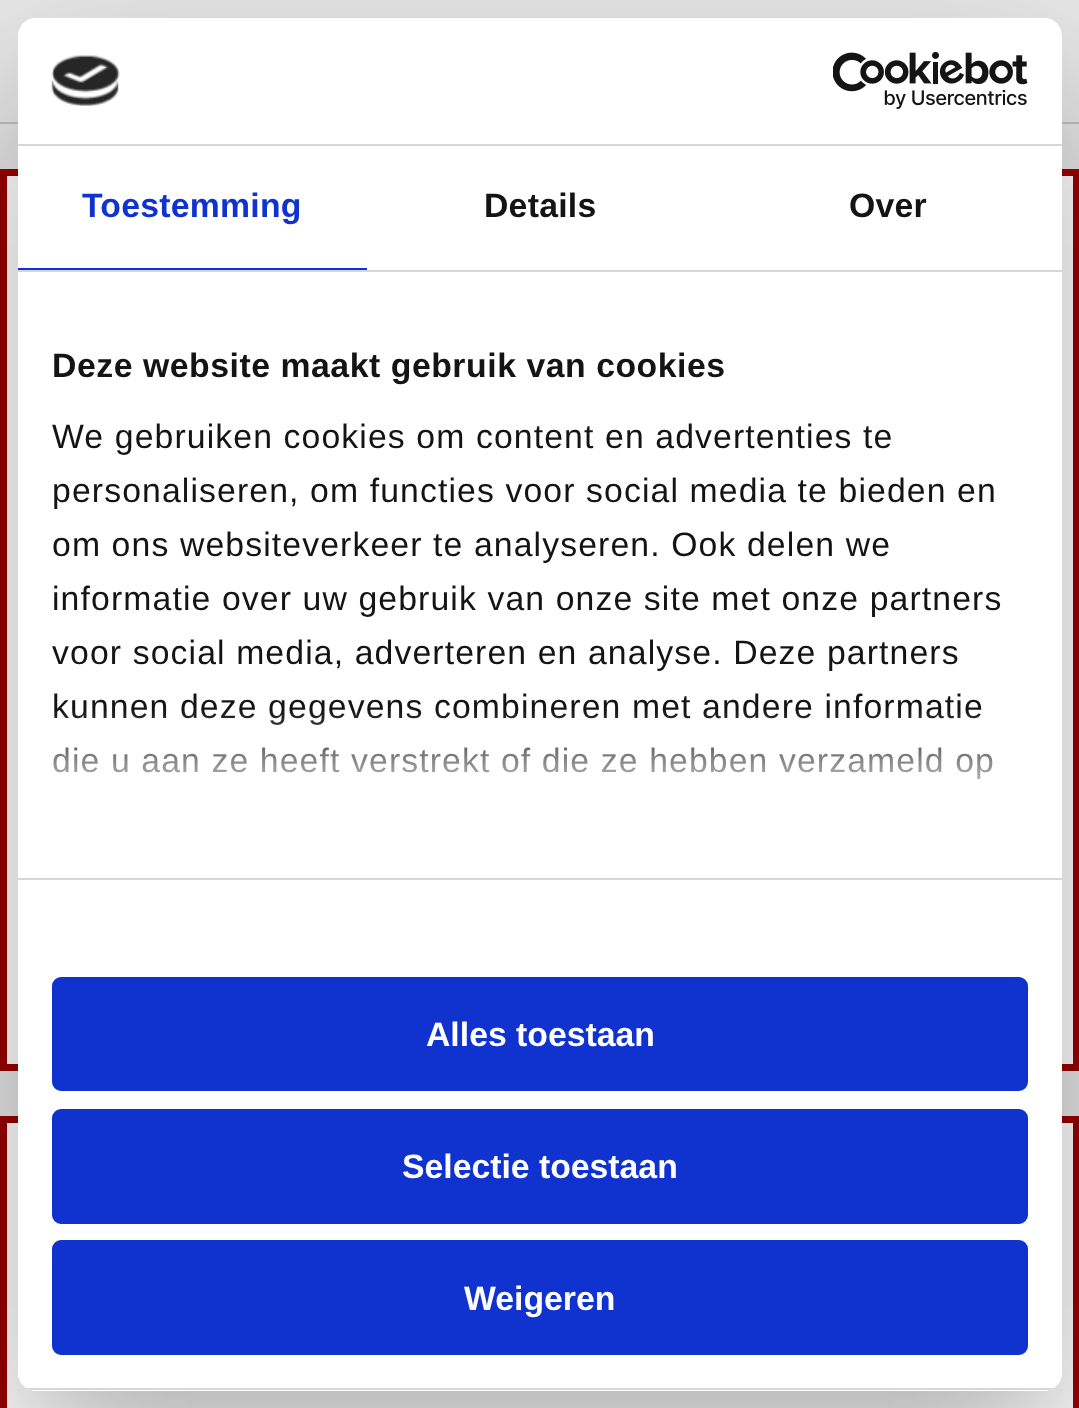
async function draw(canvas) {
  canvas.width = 1079
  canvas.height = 1408
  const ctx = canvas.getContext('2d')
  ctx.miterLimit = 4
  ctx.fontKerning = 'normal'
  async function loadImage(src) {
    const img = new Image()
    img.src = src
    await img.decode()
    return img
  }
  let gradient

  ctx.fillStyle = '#e6e6e6'
  ctx.fillRect(0, 0, 1079, 1408)
  ctx.fillStyle = '#c0c0c0'
  ctx.fillRect(0, 122, 1079, 2)
  ctx.fillStyle = '#fff'
  ctx.beginPath()
  ctx.rect(3.5, 172.5, 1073, 895)
  ctx.fill()
  ctx.strokeStyle = '#900'
  ctx.lineWidth = 7
  ctx.stroke()
  ctx.beginPath()
  ctx.rect(3.5, 1119.5, 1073, 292)
  ctx.fill()
  ctx.stroke()
  ctx.fillStyle = '#0000004d'
  ctx.filter = 'blur(76.5px)'
  ctx.beginPath()
  ctx.roundRect(18, 90, 1044, 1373, 18)
  ctx.fill()
  ctx.filter = 'none'
  ctx.fillStyle = '#fff'
  ctx.beginPath()
  ctx.roundRect(18, 18, 1044, 1373, 18)
  ctx.fill()
  ctx.fillStyle = '#d6d6d6'
  ctx.fillRect(18, 144, 1044, 2)
  ctx.drawImage(await loadImage('image0.png'), 51, 55, 69, 51)
  ctx.drawImage(await loadImage('image1.png'), 833, 52, 195, 57)
  ctx.fillRect(18, 270, 1044, 2)
  ctx.fillStyle = '#1032cf'
  ctx.fillRect(18, 268, 349, 2)
  ctx.letterSpacing = '0.25px'
  ctx.font = 'bold 33.75px Liberation Sans'
  ctx.fillText('Toestemming', 82, 217)
  ctx.fillStyle = '#141414'
  ctx.fillText('Details', 484, 217)
  ctx.fillText('Over', 849, 217)
  ctx.fillStyle = '#d6d6d6'
  ctx.fillRect(18, 878, 1044, 2)
  ctx.letterSpacing = '0.55px'
  ctx.fillStyle = '#141414'
  ctx.fillText('Deze website maakt gebruik van cookies', 52, 377)
  ctx.letterSpacing = '1.12px'
  ctx.font = '33.75px Liberation Sans'
  ctx.fillText('We gebruiken cookies om content en advertenties te', 52, 448)
  ctx.fillText('personaliseren, om functies voor social media te bieden en', 52, 502)
  ctx.fillText('om ons websiteverkeer te analyseren. Ook delen we', 52, 556)
  ctx.fillText('informatie over uw gebruik van onze site met onze partners', 52, 610)
  ctx.fillText('voor social media, adverteren en analyse. Deze partners', 52, 664)
  ctx.fillText('kunnen deze gegevens combineren met andere informatie', 52, 718)
  ctx.fillText('die u aan ze heeft verstrekt of die ze hebben verzameld op', 52, 772)
  gradient = ctx.createLinearGradient(525, 878, 525, 709)
  gradient.addColorStop(0, '#fff')
  gradient.addColorStop(0.5, '#ffffffcc')
  gradient.addColorStop(1, '#ffffff00')
  ctx.fillStyle = gradient
  ctx.fillRect(53, 711, 940, 68)
  ctx.save()
  ctx.beginPath()
  ctx.roundRect(18, 18, 1044, 1373, 18)
  ctx.clip()
  ctx.fillStyle = '#d6d6d6'
  ctx.fillRect(18, 1388, 1044, 2)
  ctx.restore()
  ctx.fillStyle = '#1032cf'
  ctx.beginPath()
  ctx.roundRect(54.5, 979.5, 971, 109, 6.5)
  ctx.fill()
  ctx.strokeStyle = '#1032cf'
  ctx.lineWidth = 5
  ctx.stroke()
  ctx.letterSpacing = '0px'
  ctx.font = 'bold 33.75px Liberation Sans'
  ctx.fillStyle = '#fff'
  ctx.fillText('Alles toestaan', 426, 1046)
  ctx.fillStyle = '#1032cf'
  ctx.beginPath()
  ctx.roundRect(54.5, 1111.5, 971, 110, 6.5)
  ctx.fill()
  ctx.stroke()
  ctx.fillStyle = '#fff'
  ctx.fillText('Selectie toestaan', 402, 1178)
  ctx.fillStyle = '#1032cf'
  ctx.beginPath()
  ctx.roundRect(54.5, 1242.5, 971, 110, 6.5)
  ctx.fill()
  ctx.stroke()
  ctx.fillStyle = '#fff'
  ctx.fillText('Weigeren', 464, 1310)
}

draw(document.querySelector('canvas'))
